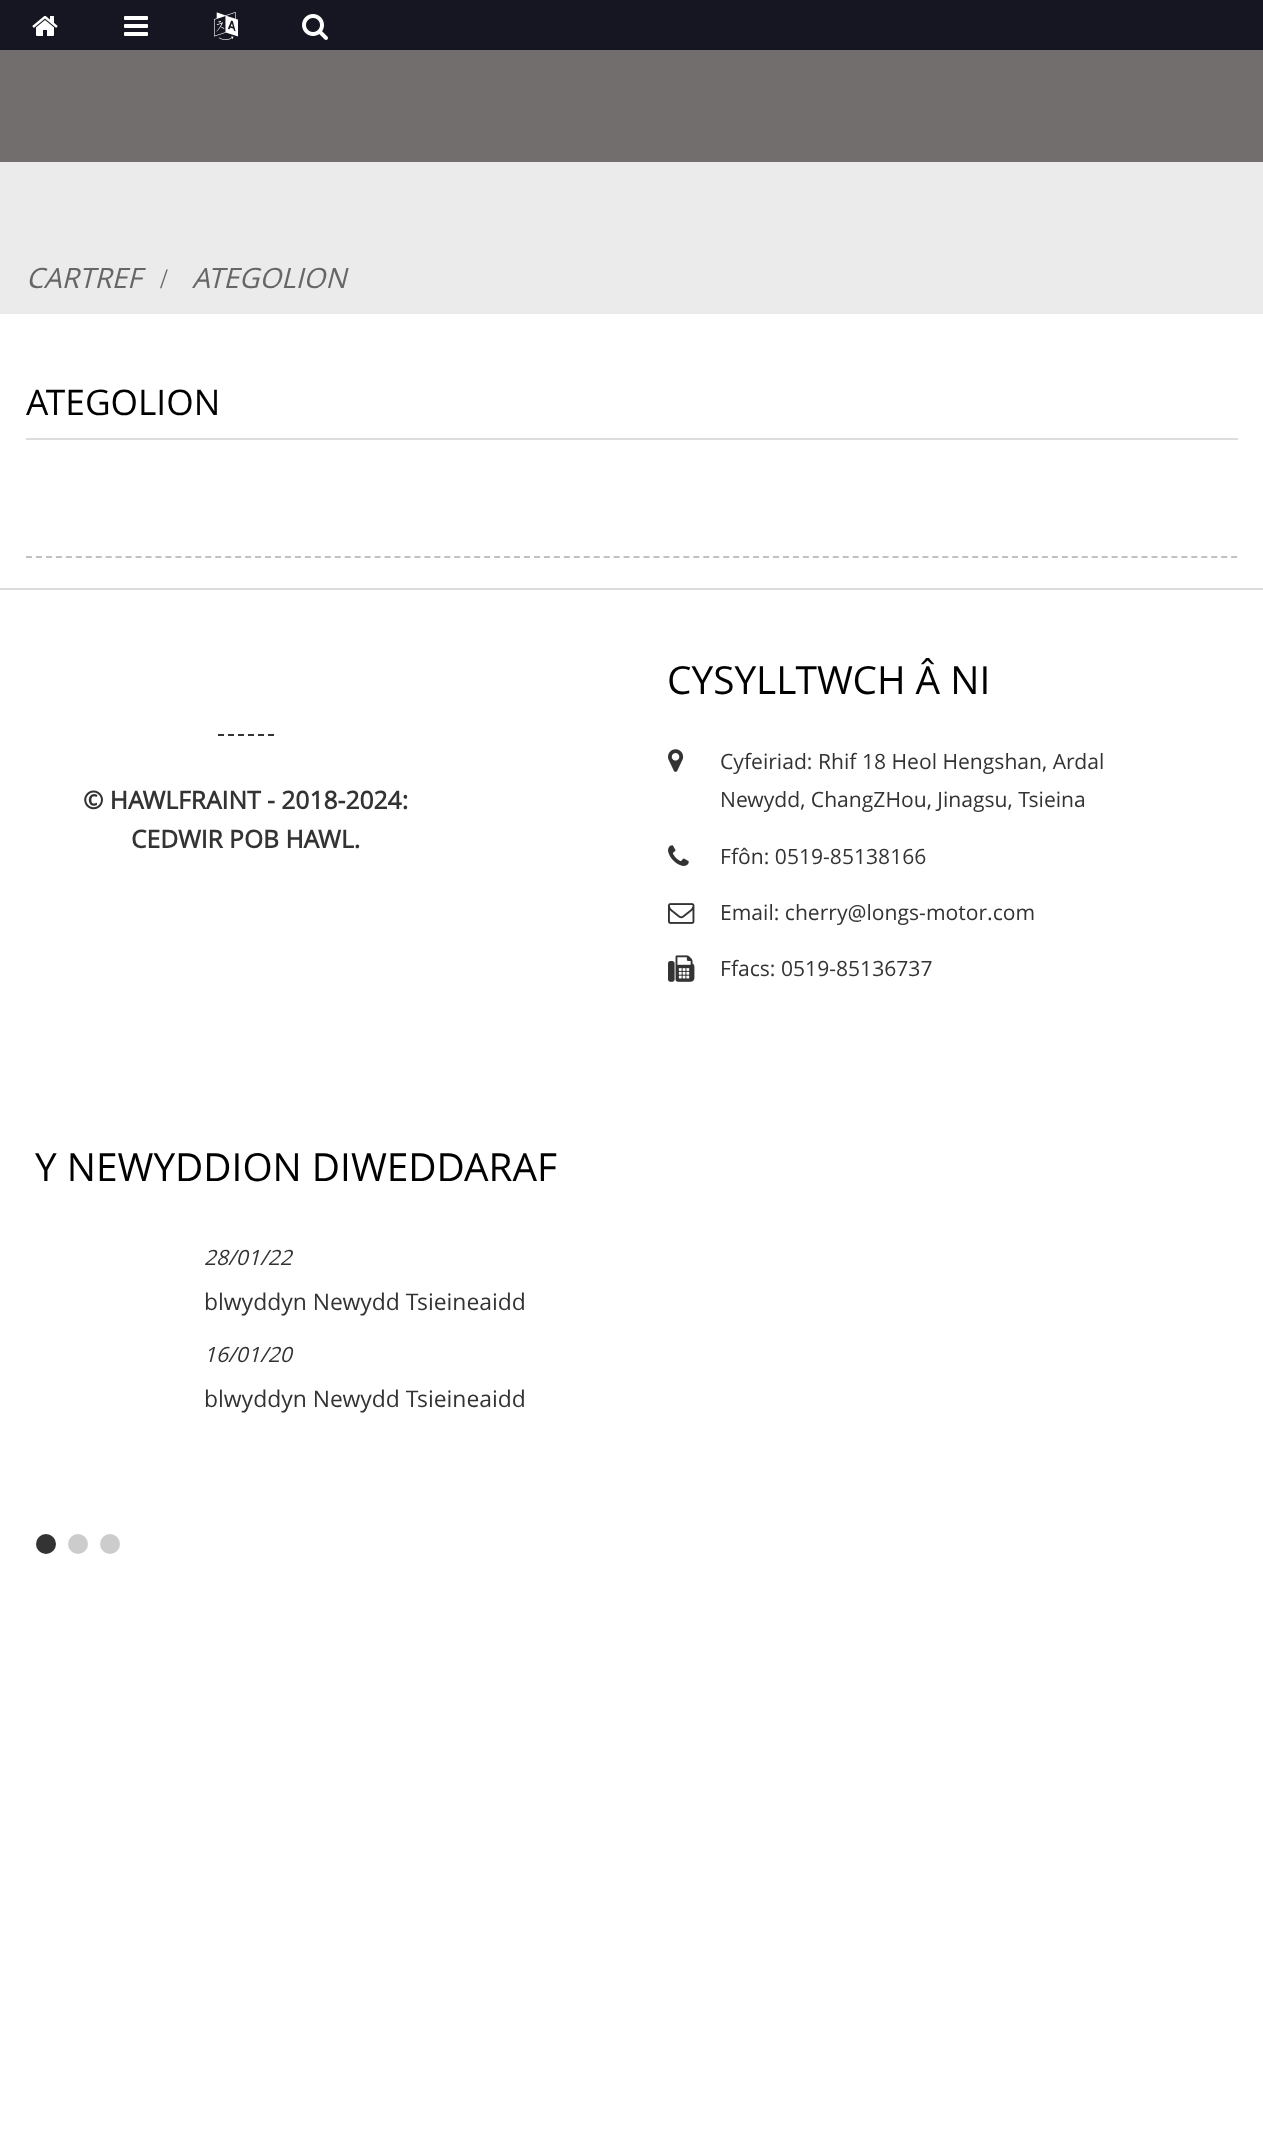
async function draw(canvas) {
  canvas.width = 1263
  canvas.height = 2146
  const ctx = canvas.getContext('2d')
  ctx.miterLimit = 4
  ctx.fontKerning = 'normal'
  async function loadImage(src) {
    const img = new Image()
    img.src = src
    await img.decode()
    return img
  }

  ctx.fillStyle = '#fff'
  ctx.fillRect(0, 0, 1263, 2146)
  ctx.fillStyle = '#736e6e'
  ctx.fillRect(0, 50, 1263, 112)
  ctx.fillStyle = '#161622'
  ctx.fillRect(0, 0, 1263, 50)
  ctx.drawImage(await loadImage('image0.png'), 32, 16, 26, 20)
  ctx.drawImage(await loadImage('image1.png'), 124, 16, 24, 20)
  ctx.drawImage(await loadImage('image2.png'), 214, 12, 24, 28)
  ctx.drawImage(await loadImage('image3.png'), 302, 14, 26, 26)
  ctx.fillStyle = '#ebebeb'
  ctx.fillRect(0, 162, 1263, 152)
  ctx.font = 'italic 28px Open Sans'
  ctx.fillStyle = '#666'
  ctx.fillText('CARTREF', 26, 288)
  ctx.font = '28px Liberation Serif'
  ctx.fillText('/', 160, 288)
  ctx.font = 'italic 28px Open Sans'
  ctx.fillText('ATEGOLION', 192, 288)
  ctx.fillStyle = '#ddd'
  ctx.fillRect(26, 438, 1212, 2)
  ctx.font = '35.25px Open Sans'
  ctx.fillStyle = '#000'
  ctx.fillText('ATEGOLION', 26, 415)
  ctx.beginPath()
  ctx.moveTo(26, 557)
  ctx.lineTo(1238, 557)
  ctx.strokeStyle = '#c1c1c1'
  ctx.lineWidth = 2
  ctx.setLineDash([6, 3.96])
  ctx.stroke()
  ctx.fillStyle = '#dbdbdb'
  ctx.fillRect(0, 588, 1263, 2)
  ctx.beginPath()
  ctx.moveTo(218, 735)
  ctx.lineTo(274, 735)
  ctx.strokeStyle = '#333'
  ctx.setLineDash([6, 4])
  ctx.stroke()
  ctx.font = 'bold 24.6px Open Sans'
  ctx.fillStyle = '#333'
  ctx.fillText('© HAWLFRAINT - 2018-2024:', 83, 809)
  ctx.fillText('CEDWIR POB HAWL.', 131, 848)
  ctx.font = '38.75px Open Sans'
  ctx.fillStyle = '#000'
  ctx.fillText('CYSYLLTWCH Â NI', 667, 694)
  ctx.drawImage(await loadImage('image4.png'), 668, 749, 16, 23)
  ctx.font = '21.1px Open Sans'
  ctx.fillStyle = '#333'
  ctx.fillText('Cyfeiriad: Rhif 18 Heol Hengshan, Ardal', 720, 769)
  ctx.fillText('Newydd, ChangZHou, Jinagsu, Tsieina', 720, 807)
  ctx.drawImage(await loadImage('image5.png'), 668, 845, 21, 21)
  ctx.fillText('Ffôn: 0519-85138166', 720, 864)
  ctx.drawImage(await loadImage('image6.png'), 668, 903, 27, 21)
  ctx.fillText('Email: cherry@longs-motor.com', 720, 920)
  ctx.drawImage(await loadImage('image7.png'), 668, 955, 27, 27)
  ctx.fillText('Ffacs: 0519-85136737', 720, 976)
  ctx.font = '38.75px Open Sans'
  ctx.fillStyle = '#000'
  ctx.fillText('Y NEWYDDION DIWEDDARAF', 35, 1181)
  ctx.font = 'italic 21.1px Open Sans'
  ctx.fillStyle = '#333'
  ctx.fillText('28/01/22', 204, 1265)
  ctx.font = '22.9px Open Sans'
  ctx.fillText('blwyddyn Newydd Tsieineaidd', 204, 1310)
  ctx.font = 'italic 21.1px Open Sans'
  ctx.fillText('16/01/20', 204, 1362)
  ctx.font = '22.9px Open Sans'
  ctx.fillText('blwyddyn Newydd Tsieineaidd', 204, 1407)
  ctx.beginPath()
  ctx.arc(46, 1544, 10, 0, 2 * Math.PI)
  ctx.fill()
  ctx.fillStyle = '#ccc'
  ctx.beginPath()
  ctx.arc(78, 1544, 10, 0, 2 * Math.PI)
  ctx.fill()
  ctx.beginPath()
  ctx.arc(110, 1544, 10, 0, 2 * Math.PI)
  ctx.fill()
}

draw(document.querySelector('canvas'))
